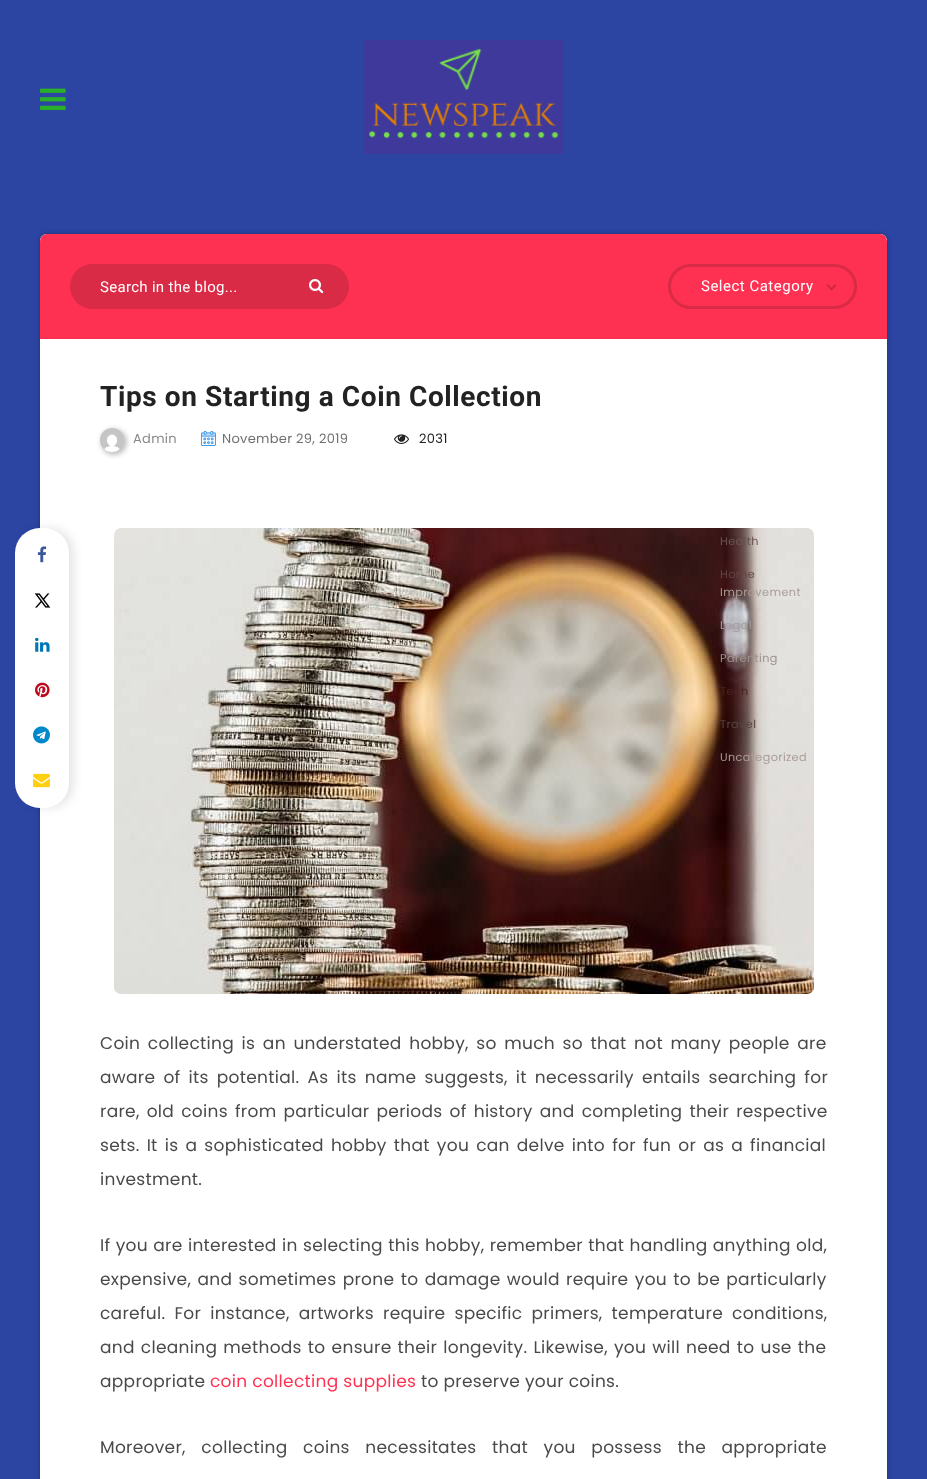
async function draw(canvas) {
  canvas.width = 927
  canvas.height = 1479
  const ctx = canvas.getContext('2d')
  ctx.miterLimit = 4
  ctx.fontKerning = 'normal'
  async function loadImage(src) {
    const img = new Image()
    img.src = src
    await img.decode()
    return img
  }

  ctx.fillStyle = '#2c45a3'
  ctx.fillRect(0, 0, 927, 1479)
  ctx.drawImage(await loadImage('image0.png'), 40, 88, 26, 22)
  ctx.drawImage(await loadImage('image1.png'), 364, 40, 200, 114)
  ctx.fillStyle = '#0000004d'
  ctx.filter = 'blur(2.5px)'
  ctx.beginPath()
  ctx.roundRect(40, 234, 847, 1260, 7)
  ctx.fill()
  ctx.filter = 'none'
  ctx.fillStyle = '#fff'
  ctx.beginPath()
  ctx.moveTo(47, 234)
  ctx.lineTo(880, 234)
  ctx.bezierCurveTo(884, 234, 887, 237, 887, 241)
  ctx.lineTo(887, 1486)
  ctx.lineTo(40, 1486)
  ctx.lineTo(40, 241)
  ctx.bezierCurveTo(40, 237, 43, 234, 47, 234)
  ctx.closePath()
  ctx.fill()
  ctx.fillStyle = '#ff3152'
  ctx.beginPath()
  ctx.roundRect(40, 234, 847, 105, [7, 7, 0, 0])
  ctx.fill()
  ctx.fillStyle = '#d92a46'
  ctx.beginPath()
  ctx.roundRect(70, 264, 279, 45, 22.5)
  ctx.fill()
  ctx.letterSpacing = '0.3px'
  ctx.font = '15px Roboto'
  ctx.fillStyle = '#fff'
  ctx.fillText('Search in the blog...', 100, 292)
  ctx.drawImage(await loadImage('image2.png'), 309, 279, 15, 15)
  ctx.beginPath()
  ctx.roundRect(669.5, 265.5, 186, 42, 21)
  ctx.strokeStyle = '#d92a46'
  ctx.lineWidth = 3
  ctx.stroke()
  ctx.letterSpacing = '0.5px'
  ctx.fillText('Select Category', 701, 291)
  ctx.fillStyle = '#cc2742'
  ctx.beginPath()
  ctx.moveTo(836.5, 285.5)
  ctx.lineTo(831.5, 290.5)
  ctx.lineTo(831.5, 288)
  ctx.lineTo(835, 284)
  ctx.closePath()
  ctx.fill()
  ctx.fillStyle = '#00000033'
  ctx.beginPath()
  ctx.moveTo(831.5, 290.5)
  ctx.lineTo(826.5, 285.5)
  ctx.lineTo(828, 284)
  ctx.lineTo(831.5, 288)
  ctx.closePath()
  ctx.fill()
  ctx.drawImage(await loadImage('image12.png'), 114, 528, 700, 466)
  ctx.letterSpacing = '0.4px'
  ctx.font = '11.25px Poppins'
  ctx.fillStyle = '#6a5351'
  ctx.fillText('Health', 720, 545)
  ctx.fillStyle = '#644543'
  ctx.fillText('Home', 720, 578)
  ctx.fillStyle = '#a99b98'
  ctx.fillText('Improvement', 720, 596)
  ctx.fillStyle = '#a29da1'
  ctx.fillText('Legal', 720, 629)
  ctx.fillStyle = '#9e8f8d'
  ctx.fillText('Parenting', 720, 662)
  ctx.fillStyle = '#472321'
  ctx.fillText('Tech', 720, 695)
  ctx.fillStyle = '#5a433f'
  ctx.fillText('Travel', 720, 728)
  ctx.fillStyle = '#a99b98'
  ctx.fillText('Uncategorized', 720, 761)
  ctx.letterSpacing = '0.6px'
  ctx.font = 'bold 28px Roboto'
  ctx.fillStyle = '#222'
  ctx.fillText('Tips on Starting a Coin Collection', 100, 406)
  ctx.fillStyle = '#00000040'
  ctx.filter = 'blur(2.5px)'
  ctx.beginPath()
  ctx.roundRect(101, 429, 26, 26, 13)
  ctx.fill()
  ctx.filter = 'none'
  ctx.drawImage(await loadImage('image3.png'), 100, 428, 24, 24)
  ctx.letterSpacing = '0.3px'
  ctx.font = '13px Poppins'
  ctx.fillStyle = '#898989'
  ctx.fillText('Admin', 133, 443)
  ctx.drawImage(await loadImage('image4.png'), 201, 431, 15, 15)
  ctx.fillStyle = '#6f6f6f'
  ctx.fillText('November 29, 2019', 222, 443)
  ctx.drawImage(await loadImage('image5.png'), 394, 434, 15, 10)
  ctx.fillStyle = '#222'
  ctx.fillText('2031', 419, 443)
  ctx.fillStyle = '#0000001a'
  ctx.filter = 'blur(5px)'
  ctx.beginPath()
  ctx.roundRect(20, 528, 54, 280, 25)
  ctx.fill()
  ctx.filter = 'none'
  ctx.fillStyle = '#fff'
  ctx.beginPath()
  ctx.roundRect(15, 528, 54, 280, 25)
  ctx.fill()
  ctx.drawImage(await loadImage('image6.png'), 37, 546, 10, 17)
  ctx.drawImage(await loadImage('image7.png'), 34, 593, 17, 15)
  ctx.drawImage(await loadImage('image8.png'), 35, 637, 15, 15)
  ctx.drawImage(await loadImage('image9.png'), 35, 682, 15, 16)
  ctx.drawImage(await loadImage('image10.png'), 33, 726, 17, 18)
  ctx.drawImage(await loadImage('image11.png'), 33, 773, 17, 15)
  ctx.wordSpacing = '2.75px'
  ctx.font = '17px Poppins'
  ctx.fillStyle = '#494949'
  ctx.fillText('Coin collecting is an understated hobby, so much so that not many people are', 100, 1049)
  ctx.wordSpacing = '3.25px'
  ctx.fillText('aware of its potential. As its name suggests, it necessarily entails searching for', 100, 1083)
  ctx.wordSpacing = '2.25px'
  ctx.fillText('rare, old coins from particular periods of history and completing their respective', 100, 1117)
  ctx.fillText('sets. It is a sophisticated hobby that you can delve into for fun or as a financial', 100, 1151)
  ctx.wordSpacing = '0px'
  ctx.fillText('investment.', 100, 1185)
  ctx.wordSpacing = '0.5px'
  ctx.fillText('If you are interested in selecting this hobby, remember that handling anything old,', 100, 1251)
  ctx.wordSpacing = '1.5px'
  ctx.fillText('expensive, and sometimes prone to damage would require you to be particularly', 100, 1285)
  ctx.wordSpacing = '4.25px'
  ctx.fillText('careful. For instance, artworks require specific primers, temperature conditions,', 100, 1319)
  ctx.wordSpacing = '1.25px'
  ctx.fillText('and cleaning methods to ensure their longevity. Likewise, you will need to use the', 100, 1353)
  ctx.wordSpacing = '0px'
  ctx.fillText('appropriate', 100, 1387)
  ctx.fillStyle = '#ff3152'
  ctx.fillText('coin collecting supplies', 210, 1387)
  ctx.fillStyle = '#494949'
  ctx.fillText('to preserve your coins.', 421, 1387)
  ctx.wordSpacing = '10.75px'
  ctx.fillText('Moreover, collecting coins necessitates that you possess the appropriate', 100, 1453)
}

draw(document.querySelector('canvas'))
